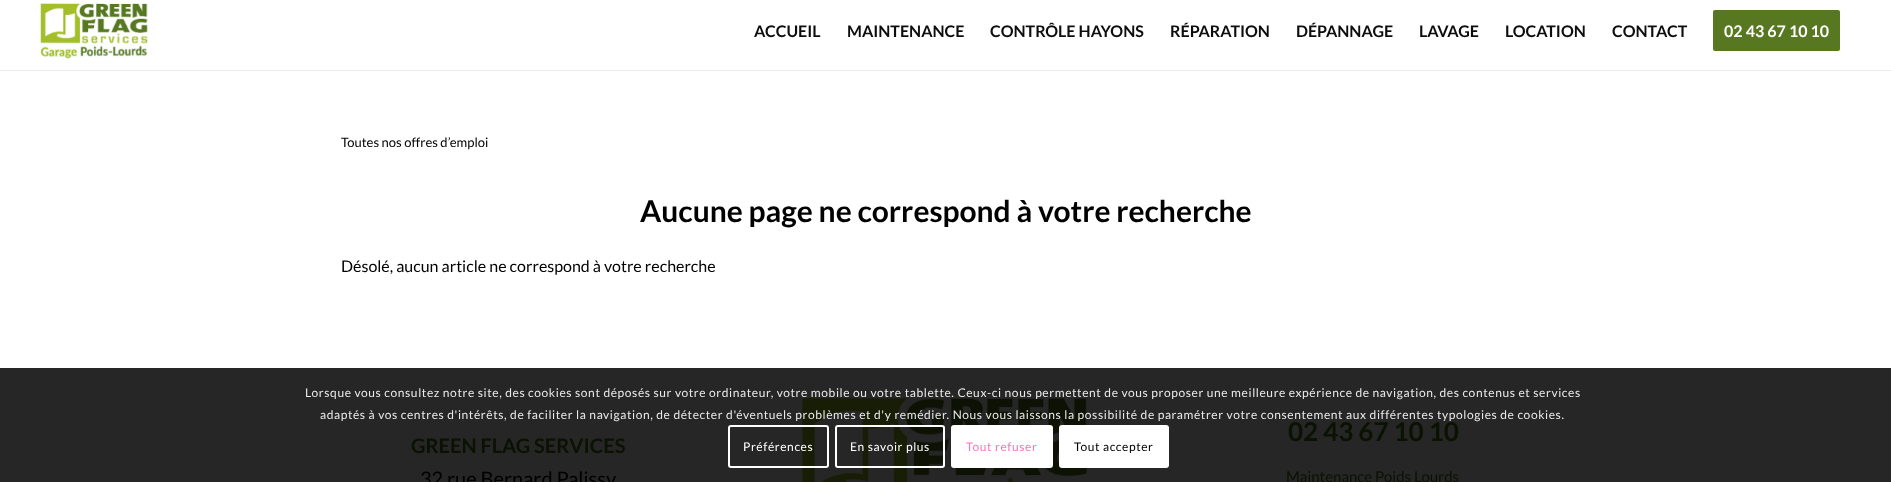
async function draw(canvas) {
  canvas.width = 1891
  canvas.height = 482
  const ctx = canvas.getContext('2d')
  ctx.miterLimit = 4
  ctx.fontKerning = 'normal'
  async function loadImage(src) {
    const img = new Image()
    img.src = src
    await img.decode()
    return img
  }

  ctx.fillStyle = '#fff'
  ctx.fillRect(0, 0, 1891, 482)
  ctx.fillStyle = '#262626'
  ctx.fillRect(0, 368, 1891, 114)
  ctx.drawImage(await loadImage('image0.png'), 40, 3, 108, 56)
  ctx.font = 'bold 16px Lato'
  ctx.fillStyle = '#0d0d0d'
  ctx.fillText('ACCUEIL', 754, 37)
  ctx.fillText('MAINTENANCE', 847, 37)
  ctx.fillText('CONTRÔLE HAYONS', 990, 37)
  ctx.fillText('RÉPARATION', 1170, 37)
  ctx.fillText('DÉPANNAGE', 1296, 37)
  ctx.fillText('LAVAGE', 1419, 37)
  ctx.fillText('LOCATION', 1505, 37)
  ctx.fillText('CONTACT', 1612, 37)
  ctx.fillStyle = '#577821'
  ctx.beginPath()
  ctx.roundRect(1714, 11, 125, 39, 1)
  ctx.fill()
  ctx.strokeStyle = '#577821'
  ctx.lineWidth = 2
  ctx.stroke()
  ctx.fillStyle = '#fff'
  ctx.fillText('02 43 67 10 10', 1724, 37)
  ctx.fillStyle = '#ebebeb'
  ctx.fillRect(0, 70, 1891, 1)
  ctx.font = '13px Lato'
  ctx.fillStyle = '#000'
  ctx.fillText('Toutes nos offres d’emploi', 341, 147)
  ctx.font = 'bold 30px Lato'
  ctx.fillText('Aucune page ne correspond à votre recherche', 640, 222)
  ctx.font = '16px Lato'
  ctx.fillText('Désolé, aucun article ne correspond à votre recherche', 341, 272)
  ctx.font = 'bold 20px Lato'
  ctx.fillStyle = '#0a1202'
  ctx.fillText('GREEN FLAG SERVICES', 411, 453)
  ctx.font = '20px Lato'
  ctx.fillStyle = '#000'
  ctx.fillText('32 rue Bernard Palissy', 420, 486)
  ctx.drawImage(await loadImage('image1.png'), 802, 397, 286, 85)
  ctx.font = 'bold 26px Lato'
  ctx.fillStyle = '#0a1202'
  ctx.fillText('02 43 67 10 10', 1288, 441)
  ctx.font = '15px Lato'
  ctx.fillText('Maintenance Poids Lourds', 1286, 482)
  ctx.letterSpacing = '0.6px'
  ctx.font = '12px Lato'
  ctx.fillStyle = '#e9e9e9'
  ctx.fillText('Lorsque vous consultez notre site, des cookies sont déposés sur votre ordinateur, votre mobile ou votre tablette. Ceux-ci nous permettent de vous proposer une meilleure expérience de navigation, des contenus et services', 305, 397)
  ctx.fillText('adaptés à vos centres d\'intérêts, de faciliter la navigation, de détecter d\'éventuels problèmes et d\'y remédier. Nous vous laissons la possibilité de paramétrer votre consentement aux différentes typologies de cookies.', 320, 419)
  ctx.beginPath()
  ctx.roundRect(729, 426, 99, 41, 2)
  ctx.strokeStyle = '#fff'
  ctx.stroke()
  ctx.fillStyle = '#fff'
  ctx.fillText('Préférences', 743, 451)
  ctx.beginPath()
  ctx.roundRect(836, 426, 108, 41, 2)
  ctx.stroke()
  ctx.fillText('En savoir plus', 850, 451)
  ctx.beginPath()
  ctx.roundRect(952, 426, 100, 41, 2)
  ctx.fill()
  ctx.stroke()
  ctx.fillStyle = '#ff75b5'
  ctx.fillText('Tout refuser', 966, 451)
  ctx.fillStyle = '#fff'
  ctx.beginPath()
  ctx.roundRect(1059, 425, 110, 43, 3)
  ctx.fill()
  ctx.fillStyle = '#000'
  ctx.fillText('Tout accepter', 1074, 451)
}

draw(document.querySelector('canvas'))
